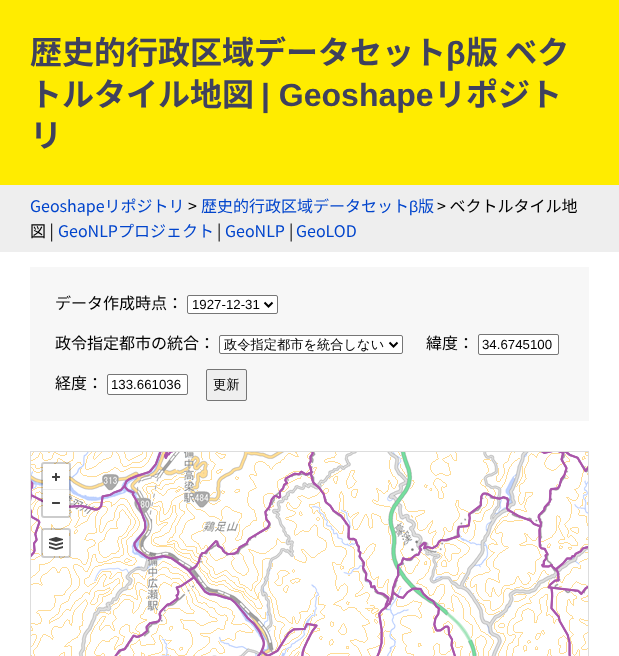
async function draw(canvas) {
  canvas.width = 619
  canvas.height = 656
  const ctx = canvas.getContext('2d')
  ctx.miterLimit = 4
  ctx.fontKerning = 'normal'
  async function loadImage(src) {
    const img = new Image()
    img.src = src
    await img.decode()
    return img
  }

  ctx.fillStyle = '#fff'
  ctx.fillRect(0, 0, 619, 656)
  ctx.fillStyle = '#ffec00'
  ctx.fillRect(0, 0, 619, 185)
  ctx.font = 'bold 32px Noto Sans JP'
  ctx.fillStyle = '#3f415e'
  ctx.fillText('歴史的行政区域データセット', 30, 64)
  ctx.font = 'bold 32px Liberation Sans'
  ctx.fillText('β', 446, 64)
  ctx.font = 'bold 32px Noto Sans JP'
  ctx.fillText('版 ベク', 466, 64)
  ctx.fillText('トルタイル地図', 30, 106)
  ctx.font = 'bold 32px Liberation Sans'
  ctx.fillText('| Geoshape', 261, 106)
  ctx.font = 'bold 32px Noto Sans JP'
  ctx.fillText('リポジト', 434, 106)
  ctx.fillText('リ', 30, 147)
  ctx.fillStyle = '#eee'
  ctx.fillRect(0, 185, 619, 67)
  ctx.font = '16px Noto Sans JP'
  ctx.fillStyle = '#04c'
  ctx.fillText('Geoshapeリポジトリ', 30, 212)
  ctx.fillStyle = '#000'
  ctx.fillText('>', 188, 212)
  ctx.fillStyle = '#04c'
  ctx.fillText('歴史的行政区域データセット', 201, 212)
  ctx.font = '16px Liberation Sans'
  ctx.fillText('β', 409, 212)
  ctx.font = '16px Noto Sans JP'
  ctx.fillText('版', 418, 212)
  ctx.fillStyle = '#000'
  ctx.fillText('> ベクトルタイル地', 437, 212)
  ctx.fillText('図 |', 30, 237)
  ctx.fillStyle = '#04c'
  ctx.fillText('GeoNLPプロジェクト', 58, 237)
  ctx.fillStyle = '#000'
  ctx.fillText('|', 217, 237)
  ctx.fillStyle = '#04c'
  ctx.fillText('GeoNLP', 225, 237)
  ctx.fillStyle = '#000'
  ctx.fillText('|', 289, 237)
  ctx.fillStyle = '#04c'
  ctx.fillText('GeoLOD', 296, 237)
  ctx.fillStyle = '#f7f7f7'
  ctx.fillRect(30, 267, 559, 154)
  ctx.fillStyle = '#000'
  ctx.fillText('データ作成時点：', 55, 309)
  ctx.fillStyle = '#fff'
  ctx.beginPath()
  ctx.roundRect(187.5, 295.5, 90, 18, 1.5)
  ctx.fill()
  ctx.strokeStyle = '#767676'
  ctx.stroke()
  ctx.beginPath()
  ctx.moveTo(264.5, 302.5)
  ctx.lineTo(268.5, 306.5)
  ctx.lineTo(272.5, 302.5)
  ctx.strokeStyle = '#000'
  ctx.lineWidth = 2
  ctx.stroke()
  ctx.font = '13.25px Liberation Sans'
  ctx.fillStyle = '#000'
  ctx.fillText('1927-12-31', 192, 309)
  ctx.font = '16px Noto Sans JP'
  ctx.fillText('政令指定都市の統合：', 55, 349)
  ctx.fillStyle = '#fff'
  ctx.beginPath()
  ctx.roundRect(219.5, 335.5, 183, 18, 1.5)
  ctx.fill()
  ctx.strokeStyle = '#767676'
  ctx.lineWidth = 1
  ctx.stroke()
  ctx.beginPath()
  ctx.moveTo(389.5, 342.5)
  ctx.lineTo(393.5, 346.5)
  ctx.lineTo(397.5, 342.5)
  ctx.strokeStyle = '#000'
  ctx.lineWidth = 2
  ctx.stroke()
  ctx.font = '500 13.25px WenQuanYi Zen Hei'
  ctx.fillStyle = '#000'
  ctx.fillText('政令指定都市を統合しない', 224, 349)
  ctx.font = '16px Noto Sans JP'
  ctx.fillText('緯度：', 426, 349)
  ctx.fillStyle = '#fff'
  ctx.beginPath()
  ctx.roundRect(478.5, 334.5, 80, 20, 1.5)
  ctx.fill()
  ctx.strokeStyle = '#767676'
  ctx.lineWidth = 1
  ctx.stroke()
  ctx.font = '13.25px Liberation Sans'
  ctx.fillStyle = '#000'
  ctx.fillText('34.6745100', 482, 349)
  ctx.font = '16px Noto Sans JP'
  ctx.fillText('経度：', 55, 389)
  ctx.fillStyle = '#fff'
  ctx.beginPath()
  ctx.roundRect(107.5, 374.5, 80, 20, 1.5)
  ctx.fill()
  ctx.stroke()
  ctx.font = '13.25px Liberation Sans'
  ctx.fillStyle = '#000'
  ctx.fillText('133.661036', 111, 389)
  ctx.fillStyle = '#efefef'
  ctx.beginPath()
  ctx.roundRect(206.5, 369.5, 40, 31, 1.5)
  ctx.fill()
  ctx.stroke()
  ctx.font = '500 13.25px WenQuanYi Zen Hei'
  ctx.fillStyle = '#000'
  ctx.fillText('更新', 213, 389)
  ctx.strokeStyle = '#ddd'
  ctx.strokeRect(30.5, 451.5, 558, 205)
  ctx.drawImage(await loadImage('image0.png'), 31, 452, 83, 162)
  ctx.drawImage(await loadImage('image1.png'), 114, 452, 256, 162)
  ctx.drawImage(await loadImage('image2.png'), 370, 452, 218, 162)
  ctx.drawImage(await loadImage('image3.png'), 31, 614, 83, 42)
  ctx.drawImage(await loadImage('image4.png'), 114, 614, 256, 42)
  ctx.drawImage(await loadImage('image5.png'), 370, 614, 218, 42)
  ctx.drawImage(await loadImage('image6.png'), 31, 480, 83, 77)
  ctx.drawImage(await loadImage('image7.png'), 114, 452, 256, 162)
  ctx.drawImage(await loadImage('image8.png'), 370, 452, 218, 162)
  ctx.drawImage(await loadImage('image9.png'), 114, 614, 204, 42)
  ctx.drawImage(await loadImage('image10.png'), 376, 614, 195, 42)
  ctx.fillStyle = '#fff'
  ctx.beginPath()
  ctx.roundRect(43, 464, 26, 52, 1)
  ctx.fill()
  ctx.beginPath()
  ctx.roundRect(42, 463, 28, 54, 2)
  ctx.strokeStyle = '#00000033'
  ctx.lineWidth = 2
  ctx.stroke()
  ctx.drawImage(await loadImage('image11.png'), 52, 473, 8, 8)
  ctx.fillStyle = '#ececec'
  ctx.fillRect(43, 489, 26, 1)
  ctx.drawImage(await loadImage('image12.png'), 52, 502, 8, 2)
  ctx.fillStyle = '#fff'
  ctx.beginPath()
  ctx.roundRect(43, 530, 26, 26, 1)
  ctx.fill()
  ctx.beginPath()
  ctx.roundRect(42, 529, 28, 28, 2)
  ctx.stroke()
  ctx.drawImage(await loadImage('image13.png'), 49, 537, 14, 13)
}

draw(document.querySelector('canvas'))
